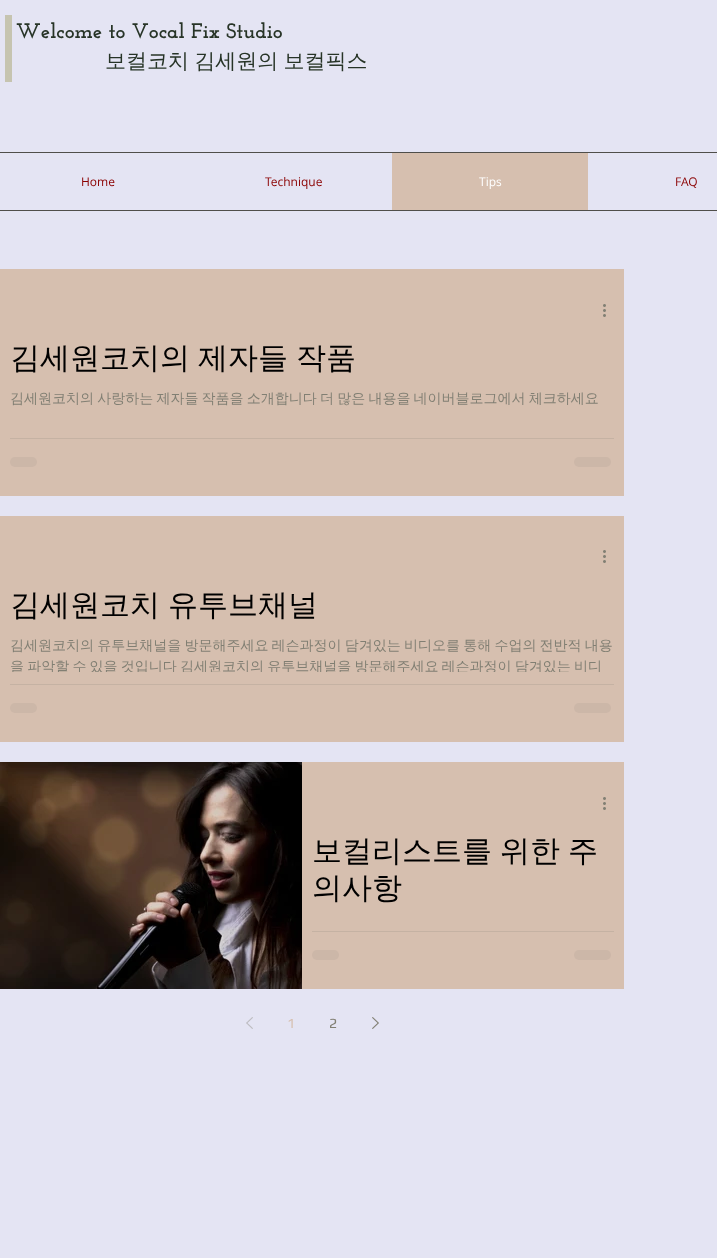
async function draw(canvas) {
  canvas.width = 717
  canvas.height = 1258
  const ctx = canvas.getContext('2d')
  ctx.miterLimit = 4
  ctx.fontKerning = 'normal'
  async function loadImage(src) {
    const img = new Image()
    img.src = src
    await img.decode()
    return img
  }

  ctx.fillStyle = '#e4e4f3'
  ctx.fillRect(0, 0, 717, 1258)
  ctx.fillStyle = '#c6c4b0'
  ctx.fillRect(5, 15, 7, 67)
  ctx.font = 'bold 21px Josefin Slab'
  ctx.fillStyle = '#273427'
  ctx.fillText('Welcome to Vocal Fix Studio', 16, 38)
  ctx.wordSpacing = '-1px'
  ctx.font = '500 21px WenQuanYi Zen Hei'
  ctx.fillText('보컬코치 김세원의 보컬픽스', 105, 68)
  ctx.fillStyle = '#4f4e4a'
  ctx.fillRect(0, 152, 717, 1)
  ctx.fillRect(0, 210, 717, 1)
  ctx.wordSpacing = '0px'
  ctx.font = '12px Open Sans'
  ctx.fillStyle = '#8b0000'
  ctx.fillText('Home', 81, 186)
  ctx.fillText('Technique', 265, 186)
  ctx.fillStyle = '#d6bfaf'
  ctx.fillRect(392, 153, 196, 57)
  ctx.fillStyle = '#fff'
  ctx.fillText('Tips', 479, 186)
  ctx.fillStyle = '#8b0000'
  ctx.fillText('FAQ', 675, 186)
  ctx.fillStyle = '#d6bfaf'
  ctx.fillRect(0, 269, 624, 227)
  ctx.drawImage(await loadImage('image0.png'), 603, 304, 3, 13)
  ctx.wordSpacing = '-1px'
  ctx.font = '500 30px WenQuanYi Zen Hei'
  ctx.fillStyle = '#000'
  ctx.fillText('김세원코치의 제자들 작품', 10, 368)
  ctx.font = '500 14px WenQuanYi Zen Hei'
  ctx.fillStyle = '#817f73'
  ctx.fillText('김세원코치의 사랑하는 제자들 작품을 소개합니다 더 많은 내용을 네이버블로그에서 체크하세요', 10, 403)
  ctx.fillStyle = '#c5b2a3'
  ctx.fillRect(10, 438, 604, 1)
  ctx.fillStyle = '#ccb7a8'
  ctx.beginPath()
  ctx.roundRect(10, 457, 27, 10, 5)
  ctx.fill()
  ctx.beginPath()
  ctx.roundRect(574, 457, 37, 10, 5)
  ctx.fill()
  ctx.fillStyle = '#d6bfaf'
  ctx.fillRect(0, 516, 624, 226)
  ctx.drawImage(await loadImage('image0.png'), 603, 550, 3, 13)
  ctx.font = '500 30px WenQuanYi Zen Hei'
  ctx.fillStyle = '#000'
  ctx.fillText('김세원코치 유투브채널', 10, 615)
  ctx.font = '500 14px WenQuanYi Zen Hei'
  ctx.fillStyle = '#817f73'
  ctx.fillText('김세원코치의 유투브채널을 방문해주세요 레슨과정이 담겨있는 비디오를 통해 수업의 전반적 내용', 10, 650)
  ctx.save()
  ctx.beginPath()
  ctx.rect(10, 635, 604, 37)
  ctx.clip()
  ctx.fillText('을 파악할 수 있을 것입니다 김세원코치의 유투브채널을 방문해주세요 레슨과정이 담겨있는 비디', 10, 671)
  ctx.restore()
  ctx.fillStyle = '#c5b2a3'
  ctx.fillRect(10, 684, 604, 1)
  ctx.fillStyle = '#ccb7a8'
  ctx.beginPath()
  ctx.roundRect(10, 703, 27, 10, 5)
  ctx.fill()
  ctx.beginPath()
  ctx.roundRect(574, 703, 37, 10, 5)
  ctx.fill()
  ctx.drawImage(await loadImage('image1.png'), 0, 762, 302, 227)
  ctx.fillStyle = '#d6bfaf'
  ctx.fillRect(302, 762, 322, 227)
  ctx.drawImage(await loadImage('image0.png'), 603, 797, 3, 13)
  ctx.font = '500 30px WenQuanYi Zen Hei'
  ctx.fillStyle = '#000'
  ctx.fillText('보컬리스트를 위한 주', 312, 861)
  ctx.wordSpacing = '0px'
  ctx.fillText('의사항', 312, 898)
  ctx.fillStyle = '#c5b2a3'
  ctx.fillRect(312, 931, 302, 1)
  ctx.fillStyle = '#ccb7a8'
  ctx.beginPath()
  ctx.roundRect(312, 950, 27, 10, 5)
  ctx.fill()
  ctx.beginPath()
  ctx.roundRect(574, 950, 37, 10, 5)
  ctx.fill()
  ctx.drawImage(await loadImage('image2.png'), 246, 1017, 7, 12)
  ctx.font = '14px Play'
  ctx.fillStyle = '#d6bfaf'
  ctx.fillText('1', 287, 1028)
  ctx.fillStyle = '#817f73'
  ctx.fillText('2', 329, 1028)
  ctx.drawImage(await loadImage('image3.png'), 372, 1017, 7, 12)
}

draw(document.querySelector('canvas'))
